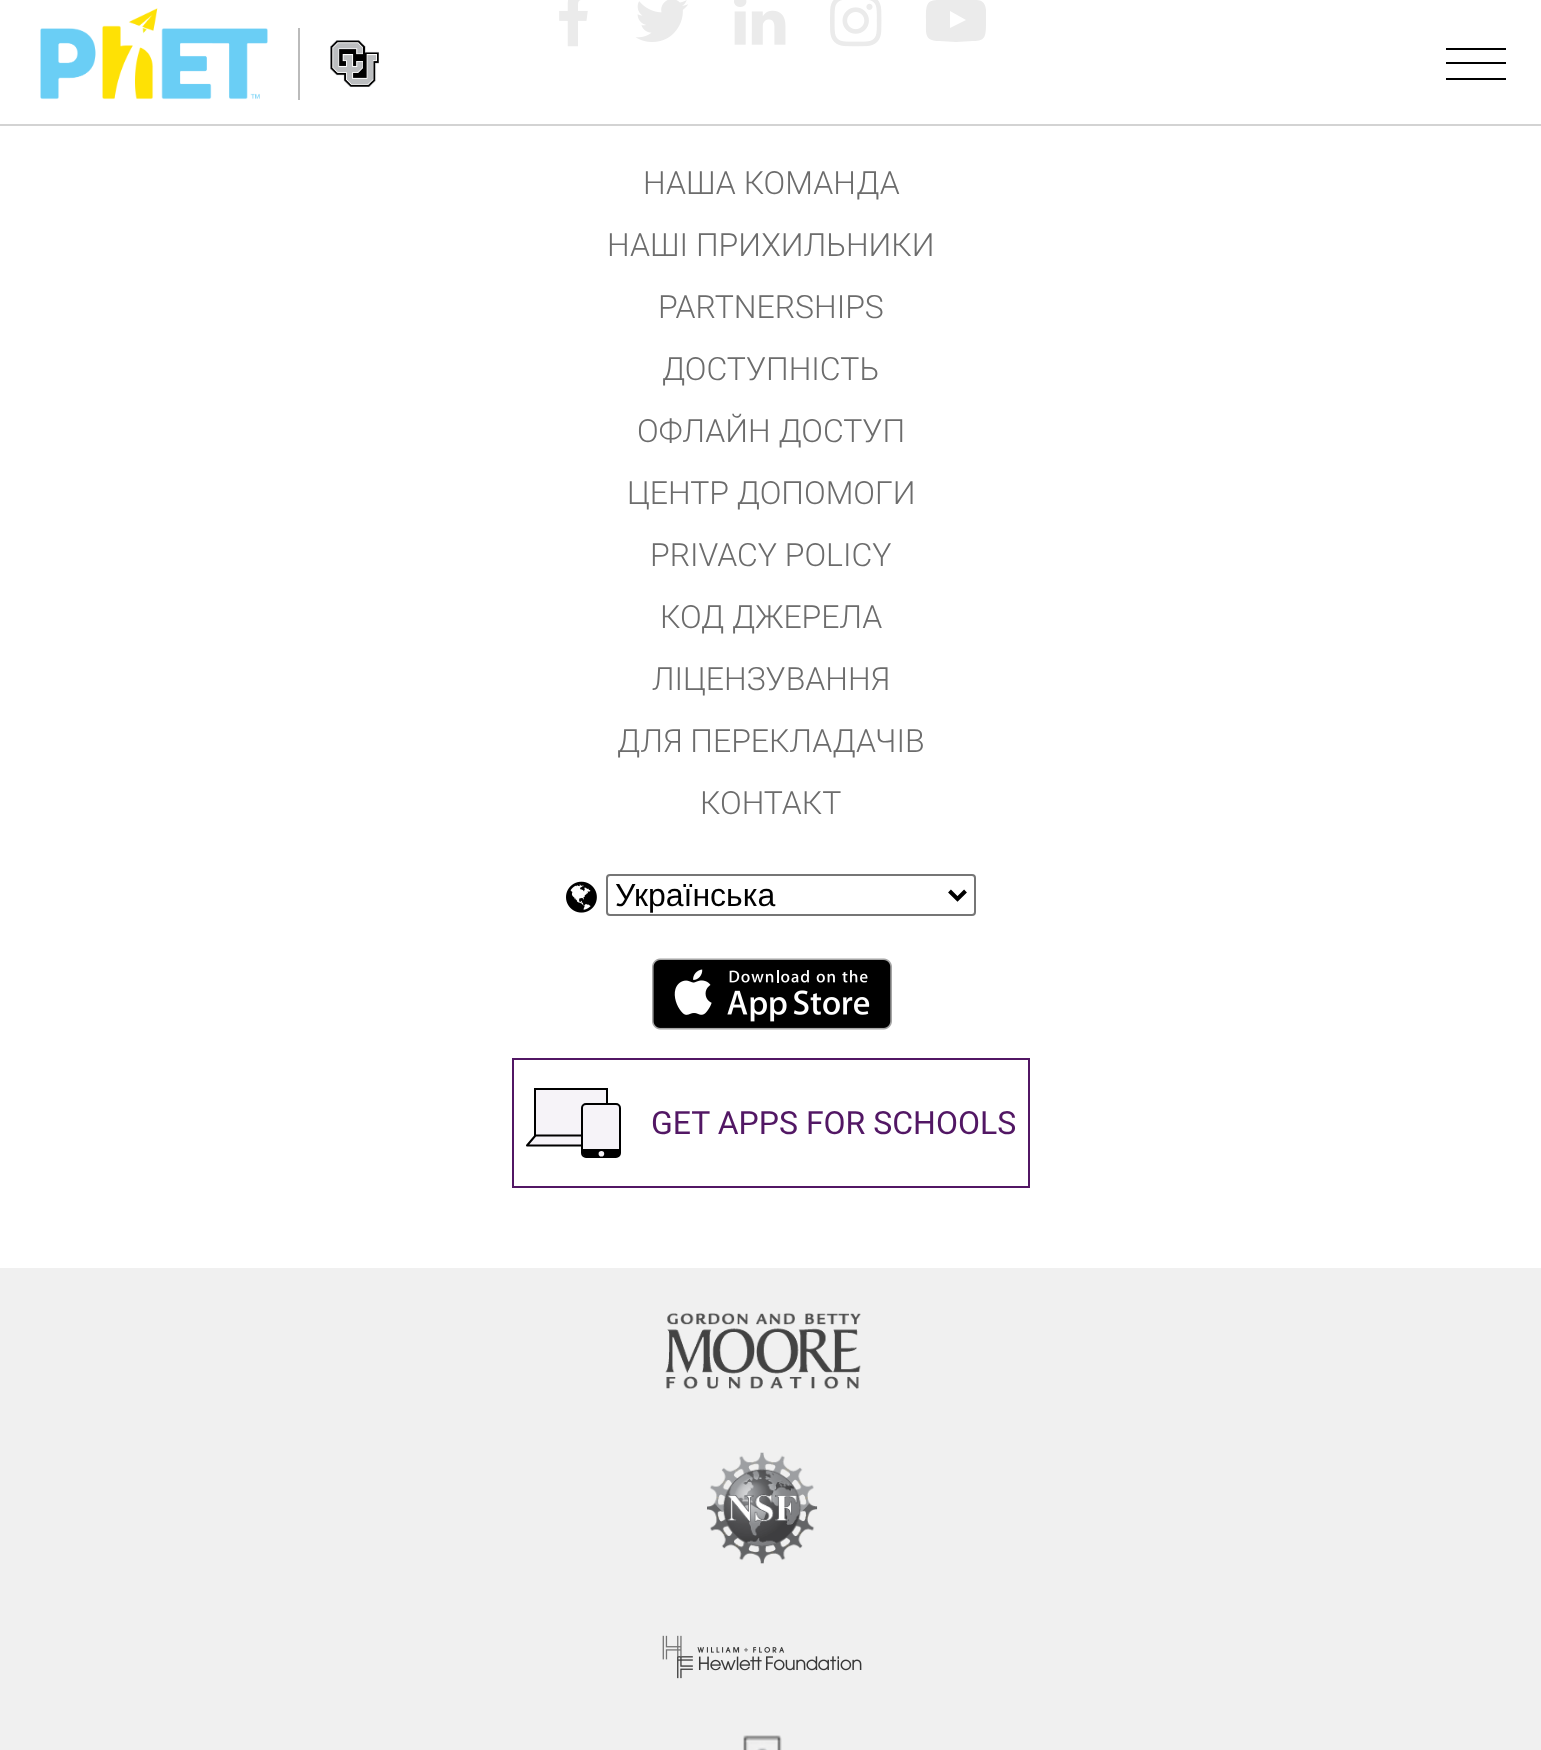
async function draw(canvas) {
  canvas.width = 1541
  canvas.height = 1750
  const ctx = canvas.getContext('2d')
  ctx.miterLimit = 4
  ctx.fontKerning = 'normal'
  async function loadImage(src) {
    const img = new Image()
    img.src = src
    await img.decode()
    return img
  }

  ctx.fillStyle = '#fff'
  ctx.fillRect(0, 0, 1541, 1750)
  ctx.drawImage(await loadImage('image2.png'), 559, 0, 29, 47)
  ctx.drawImage(await loadImage('image3.png'), 635, 0, 54, 42)
  ctx.drawImage(await loadImage('image4.png'), 734, 0, 52, 45)
  ctx.drawImage(await loadImage('image5.png'), 830, 0, 52, 47)
  ctx.fillStyle = '#000'
  ctx.beginPath()
  ctx.moveTo(950, 28)
  ctx.lineTo(966, 20)
  ctx.lineTo(950, 11)
  ctx.closePath()
  ctx.moveTo(956, -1)
  ctx.lineTo(974, 0)
  ctx.bezierCurveTo(981, 0, 985, 1, 986, 10)
  ctx.lineTo(986, 21)
  ctx.bezierCurveTo(986, 36, 986, 41, 973, 41)
  ctx.lineTo(956, 42)
  ctx.lineTo(939, 41)
  ctx.bezierCurveTo(924, 41, 926, 33, 926, 20)
  ctx.bezierCurveTo(926, 5, 926, 0, 939, 0)
  ctx.closePath()
  ctx.fill()
  ctx.fillStyle = '#ffffffeb'
  ctx.fillRect(559, 0, 427, 47)
  ctx.fillStyle = '#d3d3d3'
  ctx.fillRect(0, 124, 1541, 2)
  ctx.drawImage(await loadImage('image0.png'), 40, 8, 228, 92)
  ctx.fillStyle = '#bbb'
  ctx.fillRect(298, 28, 2, 72)
  ctx.drawImage(await loadImage('image1.png'), 330, 40, 49, 47)
  ctx.fillStyle = '#000'
  ctx.fillRect(1446, 48, 60, 2)
  ctx.fillRect(1446, 62, 60, 2)
  ctx.fillRect(1446, 78, 60, 2)
  ctx.font = '300 32px Roboto'
  ctx.fillStyle = '#6c6c6c'
  ctx.fillText('НАША КОМАНДА', 643, 194)
  ctx.fillText('НАШІ ПРИХИЛЬНИКИ', 607, 256)
  ctx.fillText('PARTNERSHIPS', 658, 318)
  ctx.fillText('ДОСТУПНІСТЬ', 662, 380)
  ctx.fillText('ОФЛАЙН ДОСТУП', 637, 442)
  ctx.fillText('ЦЕНТР ДОПОМОГИ', 627, 504)
  ctx.fillText('PRIVACY POLICY', 650, 566)
  ctx.fillText('КОД ДЖЕРЕЛА', 660, 628)
  ctx.fillText('ЛІЦЕНЗУВАННЯ', 652, 690)
  ctx.fillText('ДЛЯ ПЕРЕКЛАДАЧІВ', 617, 752)
  ctx.fillText('КОНТАКТ', 700, 814)
  ctx.drawImage(await loadImage('image6.png'), 566, 881, 31, 32)
  ctx.beginPath()
  ctx.roundRect(607, 875, 368, 40, 3)
  ctx.strokeStyle = '#767676'
  ctx.lineWidth = 2
  ctx.stroke()
  ctx.beginPath()
  ctx.moveTo(949.5, 891)
  ctx.lineTo(957.5, 899)
  ctx.lineTo(965.5, 891)
  ctx.strokeStyle = '#000'
  ctx.lineWidth = 4
  ctx.stroke()
  ctx.font = '32px Liberation Sans'
  ctx.fillStyle = '#000'
  ctx.fillText('Українська', 615, 906)
  ctx.drawImage(await loadImage('image7.png'), 652, 958, 240, 72)
  ctx.strokeStyle = '#521764'
  ctx.lineWidth = 2
  ctx.strokeRect(513, 1059, 516, 128)
  ctx.fillStyle = '#f6f3f8'
  ctx.beginPath()
  ctx.rect(535, 1089, 72, 47)
  ctx.fill()
  ctx.strokeStyle = '#000'
  ctx.stroke()
  ctx.beginPath()
  ctx.moveTo(616, 1146)
  ctx.lineTo(527, 1146)
  ctx.lineTo(535, 1136)
  ctx.lineTo(607, 1136)
  ctx.closePath()
  ctx.fill()
  ctx.beginPath()
  ctx.moveTo(616, 1145.5)
  ctx.lineTo(527, 1145.5)
  ctx.lineTo(535.5, 1135.5)
  ctx.lineTo(607.5, 1135.5)
  ctx.closePath()
  ctx.lineJoin = 'round'
  ctx.stroke()
  ctx.beginPath()
  ctx.roundRect(582, 1104, 38, 53, 4)
  ctx.fill()
  ctx.lineJoin = 'miter'
  ctx.stroke()
  ctx.fillStyle = '#000'
  ctx.beginPath()
  ctx.moveTo(616, 1157)
  ctx.lineTo(587, 1157)
  ctx.bezierCurveTo(584.5, 1157, 582.5, 1155, 582.5, 1152.5)
  ctx.lineTo(582.5, 1149)
  ctx.lineTo(620.5, 1149)
  ctx.bezierCurveTo(620.5, 1152.5, 620.5, 1157, 616, 1157)
  ctx.closePath()
  ctx.fill()
  ctx.fillStyle = '#f6f3f8'
  ctx.beginPath()
  ctx.arc(601.4, 1153.8, 2.8, 0, 2 * Math.PI)
  ctx.fill()
  ctx.font = '32px Roboto'
  ctx.fillStyle = '#521764'
  ctx.fillText('GET APPS FOR SCHOOLS', 651, 1134)
  ctx.fillStyle = '#f0f0f0'
  ctx.fillRect(0, 1268, 1541, 482)
  ctx.drawImage(await loadImage('image8.png'), 665, 1313, 196, 76)
  ctx.drawImage(await loadImage('image9.png'), 707, 1452, 111, 112)
  ctx.drawImage(await loadImage('image10.png'), 662, 1635, 200, 44)
  ctx.drawImage(await loadImage('image11.png'), 743, 1735, 39, 15)
}

draw(document.querySelector('canvas'))
